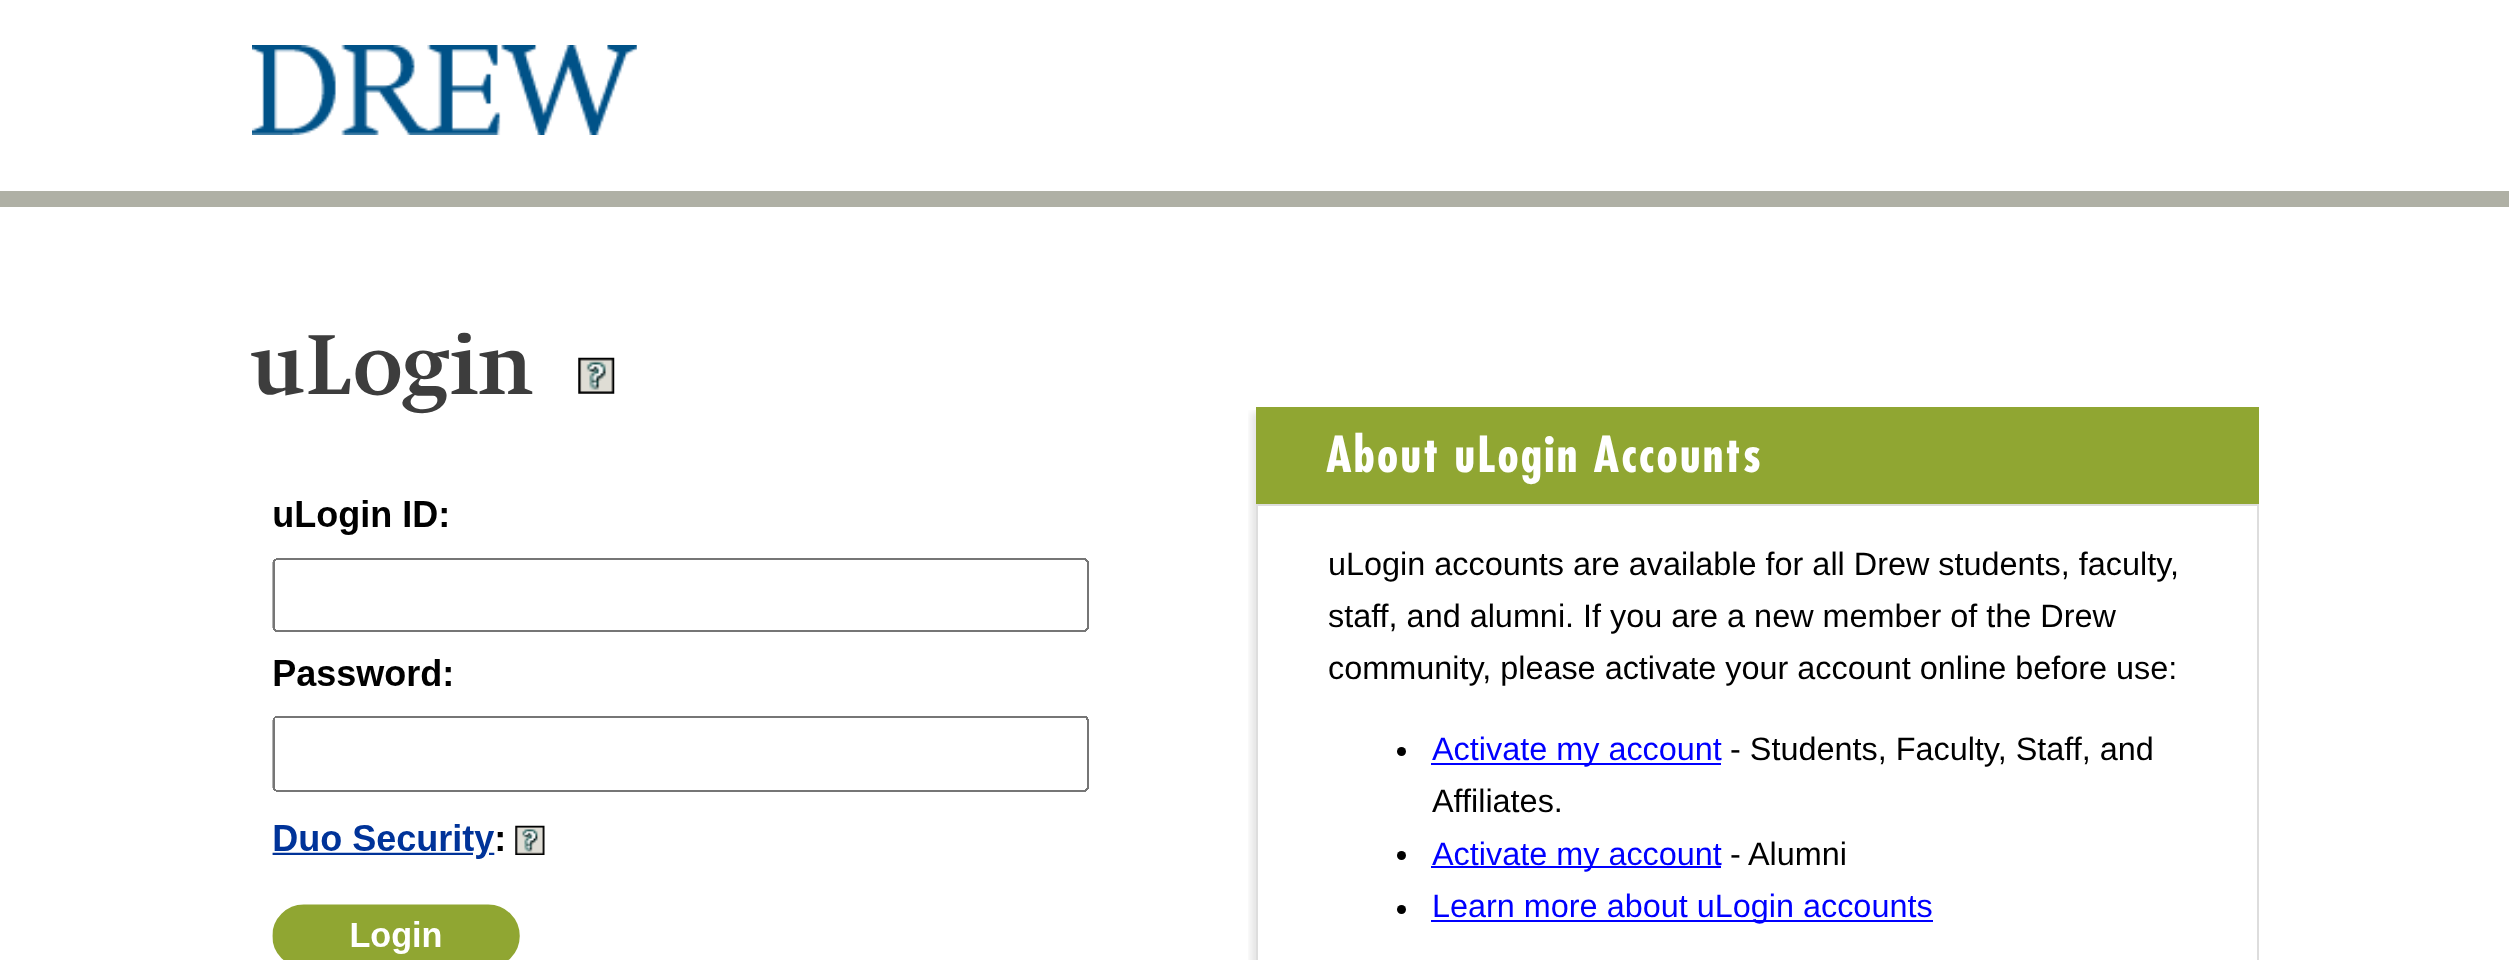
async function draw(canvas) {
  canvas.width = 2509
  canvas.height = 960
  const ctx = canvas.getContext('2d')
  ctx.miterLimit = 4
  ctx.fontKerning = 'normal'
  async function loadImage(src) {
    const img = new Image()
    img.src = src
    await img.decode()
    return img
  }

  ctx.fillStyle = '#fff'
  ctx.fillRect(0, 0, 2509, 960)
  ctx.drawImage(await loadImage('image0.png'), 252, 45, 385, 90)
  ctx.fillStyle = '#afb0a5'
  ctx.fillRect(0, 191, 2509, 16)
  ctx.font = 'bold 86.5px "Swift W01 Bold"'
  ctx.fillStyle = '#3d3d3d'
  ctx.fillText('uLogin', 251, 394)
  ctx.drawImage(await loadImage('image1.png'), 578, 357, 37, 37)
  ctx.drawImage(await loadImage('image2.png'), 272, 500, 817, 460)
  ctx.save()
  ctx.beginPath()
  ctx.rect(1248, 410, 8, 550)
  ctx.clip()
  ctx.fillStyle = '#0000001a'
  ctx.filter = 'blur(3.5px)'
  ctx.beginPath()
  ctx.rect(1251, 412, 1004, 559)
  ctx.fill()
  ctx.filter = 'none'
  ctx.restore()
  ctx.fillStyle = '#90a632'
  ctx.fillRect(1256, 407, 1003, 97)
  ctx.letterSpacing = '2.25px'
  ctx.font = 'bold 48.5px "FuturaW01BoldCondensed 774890"'
  ctx.fillStyle = '#fff'
  ctx.fillText('About uLogin Accounts', 1326, 472)
  ctx.strokeStyle = '#ddd'
  ctx.lineWidth = 2
  ctx.strokeRect(1257, 505, 1001, 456)
  ctx.letterSpacing = '0px'
  ctx.font = '32.4px Liberation Sans'
  ctx.fillStyle = '#000'
  ctx.fillText('uLogin accounts are available for all Drew students, faculty,', 1328, 575)
  ctx.fillText('staff, and alumni. If you are a new member of the Drew', 1328, 627)
  ctx.fillText('community, please activate your account online before use:', 1328, 679)
  ctx.beginPath()
  ctx.arc(1401.5, 751.5, 4.5, 0, 2 * Math.PI)
  ctx.fill()
  ctx.fillStyle = '#00f'
  ctx.fillRect(1431, 763, 290, 2)
  ctx.fillText('Activate my account', 1432, 760)
  ctx.fillStyle = '#000'
  ctx.fillText('- Students, Faculty, Staff, and', 1730, 760)
  ctx.fillText('Affiliates.', 1432, 812)
  ctx.beginPath()
  ctx.arc(1401.5, 855.5, 4.5, 0, 2 * Math.PI)
  ctx.fill()
  ctx.fillStyle = '#00f'
  ctx.fillRect(1431, 866, 290, 2)
  ctx.fillText('Activate my account', 1432, 865)
  ctx.fillStyle = '#000'
  ctx.fillText('- Alumni', 1730, 865)
  ctx.beginPath()
  ctx.arc(1401.5, 909.5, 4.5, 0, 2 * Math.PI)
  ctx.fill()
  ctx.fillStyle = '#00f'
  ctx.fillRect(1431, 920, 502, 2)
  ctx.fillText('Learn more about uLogin accounts', 1432, 917)
}

draw(document.querySelector('canvas'))
